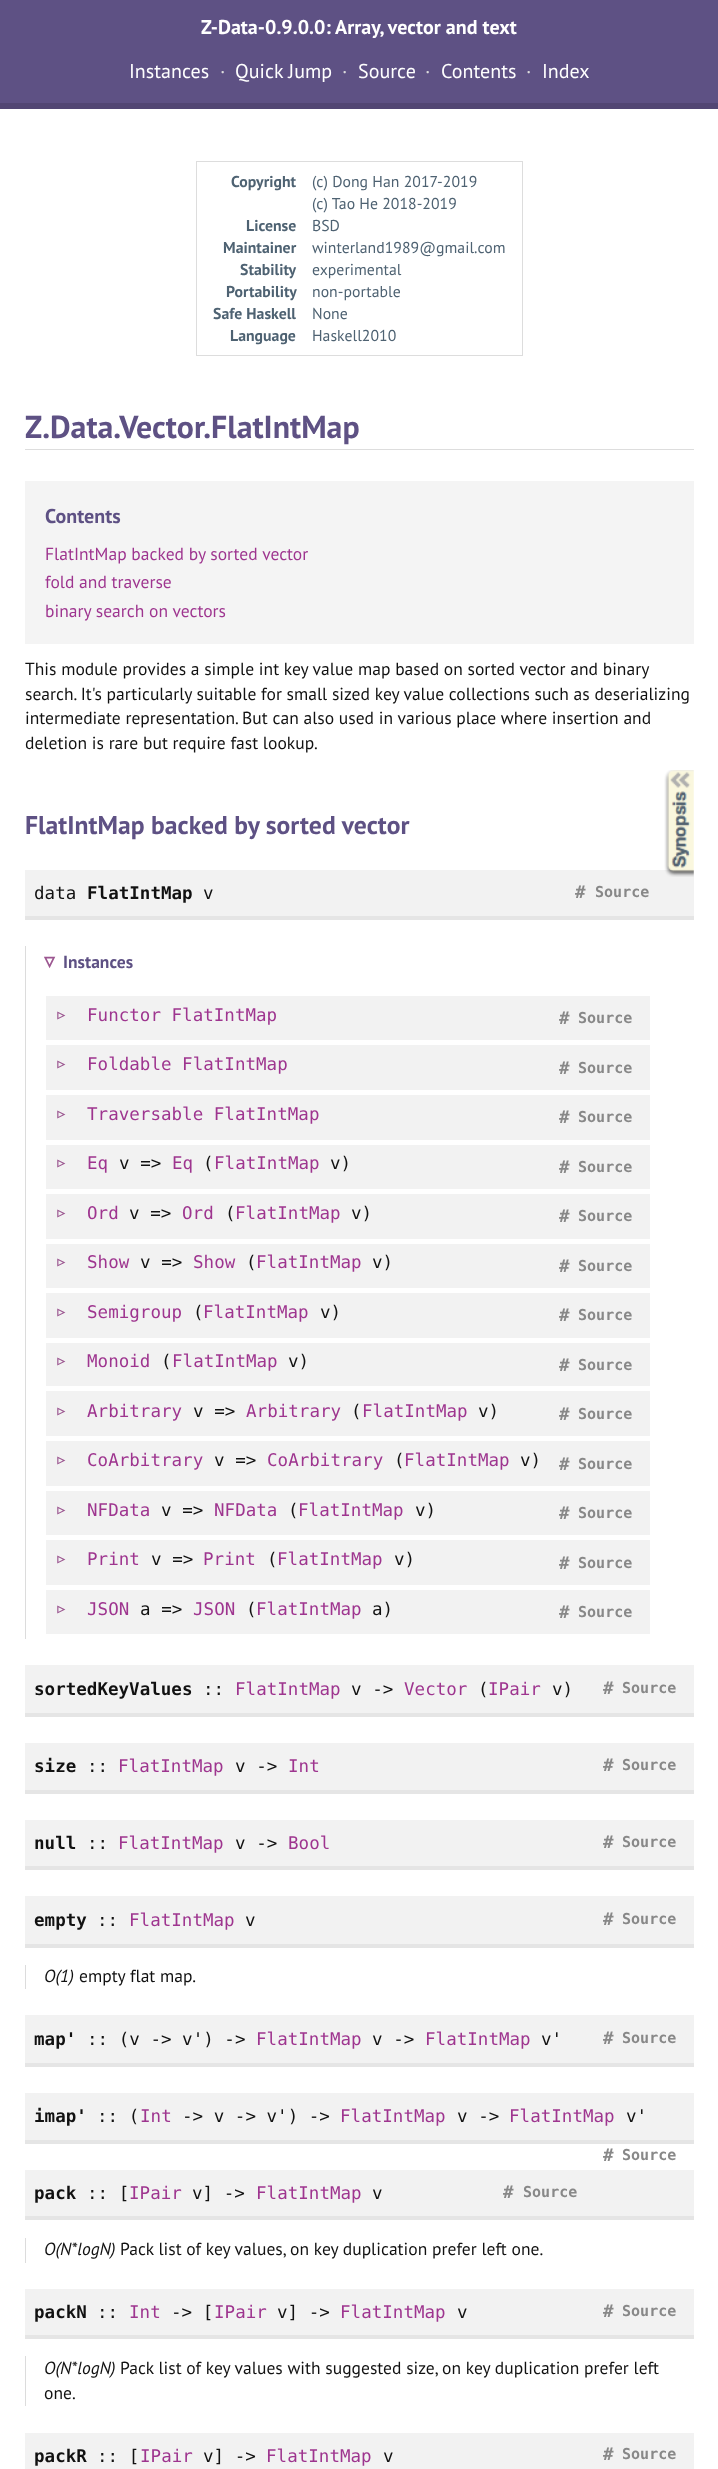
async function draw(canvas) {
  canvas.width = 718
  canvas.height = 2469
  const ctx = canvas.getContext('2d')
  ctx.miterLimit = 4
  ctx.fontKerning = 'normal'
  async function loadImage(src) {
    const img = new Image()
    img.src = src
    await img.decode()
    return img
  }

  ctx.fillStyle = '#fff'
  ctx.fillRect(0, 0, 718, 2469)
  ctx.fillStyle = '#5e5184'
  ctx.fillRect(0, 0, 718, 103)
  ctx.fillStyle = '#524673'
  ctx.fillRect(0, 103, 718, 6)
  ctx.letterSpacing = '0.03px'
  ctx.font = 'bold 20px PT Sans'
  ctx.fillStyle = '#fff'
  ctx.fillText('Z-Data-0.9.0.0: Array, vector and text', 201, 34)
  ctx.font = '20px PT Sans'
  ctx.fillText('Instances', 129, 78)
  ctx.fillStyle = '#ddd'
  ctx.fillText('·', 220, 78)
  ctx.fillStyle = '#fff'
  ctx.fillText('Quick Jump', 235, 78)
  ctx.fillStyle = '#ddd'
  ctx.fillText('·', 342, 78)
  ctx.fillStyle = '#fff'
  ctx.fillText('Source', 358, 78)
  ctx.fillStyle = '#ddd'
  ctx.fillText('·', 425, 78)
  ctx.fillStyle = '#fff'
  ctx.fillText('Contents', 441, 78)
  ctx.fillStyle = '#ddd'
  ctx.fillText('·', 526, 78)
  ctx.fillStyle = '#fff'
  ctx.fillText('Index', 542, 78)
  ctx.strokeStyle = '#ddd'
  ctx.strokeRect(196.5, 161.5, 326, 194)
  ctx.font = 'bold 15.75px PT Sans'
  ctx.fillStyle = '#4e6272'
  ctx.fillText('Copyright', 231, 187)
  ctx.font = '15.75px PT Sans'
  ctx.fillText('(c) Dong Han 2017-2019', 312, 187)
  ctx.fillText('(c) Tao He 2018-2019', 312, 209)
  ctx.font = 'bold 15.75px PT Sans'
  ctx.fillText('License', 246, 231)
  ctx.font = '15.75px PT Sans'
  ctx.fillText('BSD', 312, 231)
  ctx.font = 'bold 15.75px PT Sans'
  ctx.fillText('Maintainer', 223, 253)
  ctx.font = '15.75px PT Sans'
  ctx.fillText('winterland1989@gmail.com', 312, 253)
  ctx.font = 'bold 15.75px PT Sans'
  ctx.fillText('Stability', 240, 275)
  ctx.font = '15.75px PT Sans'
  ctx.fillText('experimental', 312, 275)
  ctx.font = 'bold 15.75px PT Sans'
  ctx.fillText('Portability', 226, 297)
  ctx.font = '15.75px PT Sans'
  ctx.fillText('non-portable', 312, 297)
  ctx.font = 'bold 15.75px PT Sans'
  ctx.fillText('Safe Haskell', 213, 319)
  ctx.font = '15.75px PT Sans'
  ctx.fillText('None', 312, 319)
  ctx.font = 'bold 15.75px PT Sans'
  ctx.fillText('Language', 230, 341)
  ctx.font = '15.75px PT Sans'
  ctx.fillText('Haskell2010', 312, 341)
  ctx.fillStyle = '#ddd'
  ctx.fillRect(25, 449, 669, 1)
  ctx.font = 'bold 31.8px PT Sans'
  ctx.fillStyle = '#5e5184'
  ctx.fillText('Z.Data.Vector.FlatIntMap', 25, 438)
  ctx.fillStyle = '#f4f4f4'
  ctx.fillRect(25, 481, 669, 163)
  ctx.font = 'bold 20px PT Sans'
  ctx.fillStyle = '#5e5184'
  ctx.fillText('Contents', 45, 523)
  ctx.font = '17.5px PT Sans'
  ctx.fillStyle = '#9e358f'
  ctx.fillText('FlatIntMap backed by sorted vector', 45, 560)
  ctx.fillText('fold and traverse', 45, 588)
  ctx.fillText('binary search on vectors', 45, 617)
  ctx.fillStyle = '#111'
  ctx.fillText('This module provides a simple int key value map based on sorted vector and binary', 25, 675)
  ctx.fillText('search. It\'s particularly suitable for small sized key value collections such as deserializing', 25, 700)
  ctx.fillText('intermediate representation. But can also used in various place where insertion and', 25, 724)
  ctx.fillText('deletion is rare but require fast lookup.', 25, 749)
  ctx.font = 'bold 25.6px PT Sans'
  ctx.fillStyle = '#5e5184'
  ctx.fillText('FlatIntMap backed by sorted vector', 25, 834)
  ctx.fillStyle = '#f2f2f2'
  ctx.fillRect(25, 870, 669, 46)
  ctx.fillStyle = '#e5e5e5'
  ctx.fillRect(25, 916, 669, 4)
  ctx.font = '17.5px DejaVu Sans Mono'
  ctx.fillStyle = '#111'
  ctx.fillText('data', 34, 899)
  ctx.font = 'bold 17.5px DejaVu Sans Mono'
  ctx.fillText('FlatIntMap', 87, 899)
  ctx.font = '17.5px DejaVu Sans Mono'
  ctx.fillText('v', 203, 899)
  ctx.font = 'bold 17.5px DejaVu Sans Mono'
  ctx.fillStyle = '#888'
  ctx.fillText('#', 575, 898)
  ctx.font = 'bold 15px DejaVu Sans Mono'
  ctx.fillText('Source', 595, 897)
  ctx.fillStyle = '#dcdcdc'
  ctx.fillRect(25, 946, 1, 693)
  ctx.font = 'bold 21px DejaVu Sans'
  ctx.fillStyle = '#9c5791'
  ctx.fillText('▿', 44, 968)
  ctx.font = 'bold 17.5px PT Sans'
  ctx.fillStyle = '#5e5184'
  ctx.fillText('Instances', 63, 968)
  ctx.fillStyle = '#f2f2f2'
  ctx.fillRect(46, 996, 604, 44)
  ctx.font = '21px DejaVu Sans Mono'
  ctx.fillStyle = '#9c5791'
  ctx.fillText('▹', 55, 1021)
  ctx.font = '17.5px DejaVu Sans Mono'
  ctx.fillStyle = '#9e358f'
  ctx.fillText('Functor FlatIntMap', 87, 1021)
  ctx.font = 'bold 17.5px DejaVu Sans Mono'
  ctx.fillStyle = '#888'
  ctx.fillText('#', 559, 1024)
  ctx.font = 'bold 15px DejaVu Sans Mono'
  ctx.fillText('Source', 578, 1023)
  ctx.fillStyle = '#f2f2f2'
  ctx.fillRect(46, 1045, 604, 45)
  ctx.font = '21px DejaVu Sans Mono'
  ctx.fillStyle = '#9c5791'
  ctx.fillText('▹', 55, 1070)
  ctx.font = '17.5px DejaVu Sans Mono'
  ctx.fillStyle = '#9e358f'
  ctx.fillText('Foldable FlatIntMap', 87, 1070)
  ctx.font = 'bold 17.5px DejaVu Sans Mono'
  ctx.fillStyle = '#888'
  ctx.fillText('#', 559, 1074)
  ctx.font = 'bold 15px DejaVu Sans Mono'
  ctx.fillText('Source', 578, 1073)
  ctx.fillStyle = '#f2f2f2'
  ctx.fillRect(46, 1095, 604, 45)
  ctx.font = '21px DejaVu Sans Mono'
  ctx.fillStyle = '#9c5791'
  ctx.fillText('▹', 55, 1120)
  ctx.font = '17.5px DejaVu Sans Mono'
  ctx.fillStyle = '#9e358f'
  ctx.fillText('Traversable FlatIntMap', 87, 1120)
  ctx.font = 'bold 17.5px DejaVu Sans Mono'
  ctx.fillStyle = '#888'
  ctx.fillText('#', 559, 1123)
  ctx.font = 'bold 15px DejaVu Sans Mono'
  ctx.fillText('Source', 578, 1122)
  ctx.fillStyle = '#f2f2f2'
  ctx.fillRect(46, 1145, 604, 44)
  ctx.font = '21px DejaVu Sans Mono'
  ctx.fillStyle = '#9c5791'
  ctx.fillText('▹', 55, 1169)
  ctx.font = '17.5px DejaVu Sans Mono'
  ctx.fillStyle = '#9e358f'
  ctx.fillText('Eq', 87, 1169)
  ctx.fillStyle = '#111'
  ctx.fillText('v =>', 119, 1169)
  ctx.fillStyle = '#9e358f'
  ctx.fillText('Eq', 172, 1169)
  ctx.fillStyle = '#111'
  ctx.fillText('(', 203, 1169)
  ctx.fillStyle = '#9e358f'
  ctx.fillText('FlatIntMap', 214, 1169)
  ctx.fillStyle = '#111'
  ctx.fillText('v)', 330, 1169)
  ctx.font = 'bold 17.5px DejaVu Sans Mono'
  ctx.fillStyle = '#888'
  ctx.fillText('#', 559, 1173)
  ctx.font = 'bold 15px DejaVu Sans Mono'
  ctx.fillText('Source', 578, 1172)
  ctx.fillStyle = '#f2f2f2'
  ctx.fillRect(46, 1194, 604, 45)
  ctx.font = '21px DejaVu Sans Mono'
  ctx.fillStyle = '#9c5791'
  ctx.fillText('▹', 55, 1219)
  ctx.font = '17.5px DejaVu Sans Mono'
  ctx.fillStyle = '#9e358f'
  ctx.fillText('Ord', 87, 1219)
  ctx.fillStyle = '#111'
  ctx.fillText('v =>', 129, 1219)
  ctx.fillStyle = '#9e358f'
  ctx.fillText('Ord', 182, 1219)
  ctx.fillStyle = '#111'
  ctx.fillText('(', 225, 1219)
  ctx.fillStyle = '#9e358f'
  ctx.fillText('FlatIntMap', 235, 1219)
  ctx.fillStyle = '#111'
  ctx.fillText('v)', 351, 1219)
  ctx.font = 'bold 17.5px DejaVu Sans Mono'
  ctx.fillStyle = '#888'
  ctx.fillText('#', 559, 1222)
  ctx.font = 'bold 15px DejaVu Sans Mono'
  ctx.fillText('Source', 578, 1221)
  ctx.fillStyle = '#f2f2f2'
  ctx.fillRect(46, 1244, 604, 44)
  ctx.font = '21px DejaVu Sans Mono'
  ctx.fillStyle = '#9c5791'
  ctx.fillText('▹', 55, 1268)
  ctx.font = '17.5px DejaVu Sans Mono'
  ctx.fillStyle = '#9e358f'
  ctx.fillText('Show', 87, 1268)
  ctx.fillStyle = '#111'
  ctx.fillText('v =>', 140, 1268)
  ctx.fillStyle = '#9e358f'
  ctx.fillText('Show', 193, 1268)
  ctx.fillStyle = '#111'
  ctx.fillText('(', 246, 1268)
  ctx.fillStyle = '#9e358f'
  ctx.fillText('FlatIntMap', 256, 1268)
  ctx.fillStyle = '#111'
  ctx.fillText('v)', 372, 1268)
  ctx.font = 'bold 17.5px DejaVu Sans Mono'
  ctx.fillStyle = '#888'
  ctx.fillText('#', 559, 1272)
  ctx.font = 'bold 15px DejaVu Sans Mono'
  ctx.fillText('Source', 578, 1271)
  ctx.fillStyle = '#f2f2f2'
  ctx.fillRect(46, 1293, 604, 45)
  ctx.font = '21px DejaVu Sans Mono'
  ctx.fillStyle = '#9c5791'
  ctx.fillText('▹', 55, 1318)
  ctx.font = '17.5px DejaVu Sans Mono'
  ctx.fillStyle = '#9e358f'
  ctx.fillText('Semigroup', 87, 1318)
  ctx.fillStyle = '#111'
  ctx.fillText('(', 193, 1318)
  ctx.fillStyle = '#9e358f'
  ctx.fillText('FlatIntMap', 203, 1318)
  ctx.fillStyle = '#111'
  ctx.fillText('v)', 320, 1318)
  ctx.font = 'bold 17.5px DejaVu Sans Mono'
  ctx.fillStyle = '#888'
  ctx.fillText('#', 559, 1321)
  ctx.font = 'bold 15px DejaVu Sans Mono'
  ctx.fillText('Source', 578, 1320)
  ctx.fillStyle = '#f2f2f2'
  ctx.fillRect(46, 1343, 604, 43)
  ctx.font = '21px DejaVu Sans Mono'
  ctx.fillStyle = '#9c5791'
  ctx.fillText('▹', 55, 1367)
  ctx.font = '17.5px DejaVu Sans Mono'
  ctx.fillStyle = '#9e358f'
  ctx.fillText('Monoid', 87, 1367)
  ctx.fillStyle = '#111'
  ctx.fillText('(', 161, 1367)
  ctx.fillStyle = '#9e358f'
  ctx.fillText('FlatIntMap', 172, 1367)
  ctx.fillStyle = '#111'
  ctx.fillText('v)', 288, 1367)
  ctx.font = 'bold 17.5px DejaVu Sans Mono'
  ctx.fillStyle = '#888'
  ctx.fillText('#', 559, 1371)
  ctx.font = 'bold 15px DejaVu Sans Mono'
  ctx.fillText('Source', 578, 1370)
  ctx.fillStyle = '#f2f2f2'
  ctx.fillRect(46, 1391, 604, 45)
  ctx.font = '21px DejaVu Sans Mono'
  ctx.fillStyle = '#9c5791'
  ctx.fillText('▹', 55, 1417)
  ctx.font = '17.5px DejaVu Sans Mono'
  ctx.fillStyle = '#9e358f'
  ctx.fillText('Arbitrary', 87, 1417)
  ctx.fillStyle = '#111'
  ctx.fillText('v =>', 193, 1417)
  ctx.fillStyle = '#9e358f'
  ctx.fillText('Arbitrary', 246, 1417)
  ctx.fillStyle = '#111'
  ctx.fillText('(', 351, 1417)
  ctx.fillStyle = '#9e358f'
  ctx.fillText('FlatIntMap', 362, 1417)
  ctx.fillStyle = '#111'
  ctx.fillText('v)', 478, 1417)
  ctx.font = 'bold 17.5px DejaVu Sans Mono'
  ctx.fillStyle = '#888'
  ctx.fillText('#', 559, 1420)
  ctx.font = 'bold 15px DejaVu Sans Mono'
  ctx.fillText('Source', 578, 1419)
  ctx.fillStyle = '#f2f2f2'
  ctx.fillRect(46, 1441, 604, 45)
  ctx.font = '21px DejaVu Sans Mono'
  ctx.fillStyle = '#9c5791'
  ctx.fillText('▹', 55, 1466)
  ctx.font = '17.5px DejaVu Sans Mono'
  ctx.fillStyle = '#9e358f'
  ctx.fillText('CoArbitrary', 87, 1466)
  ctx.fillStyle = '#111'
  ctx.fillText('v =>', 214, 1466)
  ctx.fillStyle = '#9e358f'
  ctx.fillText('CoArbitrary', 267, 1466)
  ctx.fillStyle = '#111'
  ctx.fillText('(', 394, 1466)
  ctx.fillStyle = '#9e358f'
  ctx.fillText('FlatIntMap', 404, 1466)
  ctx.fillStyle = '#111'
  ctx.fillText('v)', 520, 1466)
  ctx.font = 'bold 17.5px DejaVu Sans Mono'
  ctx.fillStyle = '#888'
  ctx.fillText('#', 559, 1470)
  ctx.font = 'bold 15px DejaVu Sans Mono'
  ctx.fillText('Source', 578, 1469)
  ctx.fillStyle = '#f2f2f2'
  ctx.fillRect(46, 1491, 604, 44)
  ctx.font = '21px DejaVu Sans Mono'
  ctx.fillStyle = '#9c5791'
  ctx.fillText('▹', 55, 1516)
  ctx.font = '17.5px DejaVu Sans Mono'
  ctx.fillStyle = '#9e358f'
  ctx.fillText('NFData', 87, 1516)
  ctx.fillStyle = '#111'
  ctx.fillText('v =>', 161, 1516)
  ctx.fillStyle = '#9e358f'
  ctx.fillText('NFData', 214, 1516)
  ctx.fillStyle = '#111'
  ctx.fillText('(', 288, 1516)
  ctx.fillStyle = '#9e358f'
  ctx.fillText('FlatIntMap', 298, 1516)
  ctx.fillStyle = '#111'
  ctx.fillText('v)', 415, 1516)
  ctx.font = 'bold 17.5px DejaVu Sans Mono'
  ctx.fillStyle = '#888'
  ctx.fillText('#', 559, 1519)
  ctx.font = 'bold 15px DejaVu Sans Mono'
  ctx.fillText('Source', 578, 1518)
  ctx.fillStyle = '#f2f2f2'
  ctx.fillRect(46, 1540, 604, 45)
  ctx.font = '21px DejaVu Sans Mono'
  ctx.fillStyle = '#9c5791'
  ctx.fillText('▹', 55, 1565)
  ctx.font = '17.5px DejaVu Sans Mono'
  ctx.fillStyle = '#9e358f'
  ctx.fillText('Print', 87, 1565)
  ctx.fillStyle = '#111'
  ctx.fillText('v =>', 151, 1565)
  ctx.fillStyle = '#9e358f'
  ctx.fillText('Print', 203, 1565)
  ctx.fillStyle = '#111'
  ctx.fillText('(', 267, 1565)
  ctx.fillStyle = '#9e358f'
  ctx.fillText('FlatIntMap', 277, 1565)
  ctx.fillStyle = '#111'
  ctx.fillText('v)', 394, 1565)
  ctx.font = 'bold 17.5px DejaVu Sans Mono'
  ctx.fillStyle = '#888'
  ctx.fillText('#', 559, 1569)
  ctx.font = 'bold 15px DejaVu Sans Mono'
  ctx.fillText('Source', 578, 1568)
  ctx.fillStyle = '#f2f2f2'
  ctx.fillRect(46, 1590, 604, 44)
  ctx.font = '21px DejaVu Sans Mono'
  ctx.fillStyle = '#9c5791'
  ctx.fillText('▹', 55, 1615)
  ctx.font = '17.5px DejaVu Sans Mono'
  ctx.fillStyle = '#9e358f'
  ctx.fillText('JSON', 87, 1615)
  ctx.fillStyle = '#111'
  ctx.fillText('a =>', 140, 1615)
  ctx.fillStyle = '#9e358f'
  ctx.fillText('JSON', 193, 1615)
  ctx.fillStyle = '#111'
  ctx.fillText('(', 246, 1615)
  ctx.fillStyle = '#9e358f'
  ctx.fillText('FlatIntMap', 256, 1615)
  ctx.fillStyle = '#111'
  ctx.fillText('a)', 372, 1615)
  ctx.font = 'bold 17.5px DejaVu Sans Mono'
  ctx.fillStyle = '#888'
  ctx.fillText('#', 559, 1618)
  ctx.font = 'bold 15px DejaVu Sans Mono'
  ctx.fillText('Source', 578, 1617)
  ctx.fillStyle = '#f2f2f2'
  ctx.fillRect(25, 1665, 669, 48)
  ctx.fillStyle = '#e5e5e5'
  ctx.fillRect(25, 1713, 669, 4)
  ctx.font = 'bold 17.5px DejaVu Sans Mono'
  ctx.fillStyle = '#111'
  ctx.fillText('sortedKeyValues', 34, 1695)
  ctx.font = '17.5px DejaVu Sans Mono'
  ctx.fillText('::', 203, 1695)
  ctx.fillStyle = '#9e358f'
  ctx.fillText('FlatIntMap', 235, 1695)
  ctx.fillStyle = '#111'
  ctx.fillText('v ->', 351, 1695)
  ctx.fillStyle = '#9e358f'
  ctx.fillText('Vector', 404, 1695)
  ctx.fillStyle = '#111'
  ctx.fillText('(', 478, 1695)
  ctx.fillStyle = '#9e358f'
  ctx.fillText('IPair', 488, 1695)
  ctx.fillStyle = '#111'
  ctx.fillText('v)', 552, 1695)
  ctx.font = 'bold 17.5px DejaVu Sans Mono'
  ctx.fillStyle = '#888'
  ctx.fillText('#', 603, 1694)
  ctx.font = 'bold 15px DejaVu Sans Mono'
  ctx.fillText('Source', 622, 1693)
  ctx.fillStyle = '#f2f2f2'
  ctx.fillRect(25, 1743, 669, 47)
  ctx.fillStyle = '#e5e5e5'
  ctx.fillRect(25, 1790, 669, 4)
  ctx.font = 'bold 17.5px DejaVu Sans Mono'
  ctx.fillStyle = '#111'
  ctx.fillText('size', 34, 1772)
  ctx.font = '17.5px DejaVu Sans Mono'
  ctx.fillText('::', 87, 1772)
  ctx.fillStyle = '#9e358f'
  ctx.fillText('FlatIntMap', 118, 1772)
  ctx.fillStyle = '#111'
  ctx.fillText('v ->', 235, 1772)
  ctx.fillStyle = '#9e358f'
  ctx.fillText('Int', 288, 1772)
  ctx.font = 'bold 17.5px DejaVu Sans Mono'
  ctx.fillStyle = '#888'
  ctx.fillText('#', 603, 1771)
  ctx.font = 'bold 15px DejaVu Sans Mono'
  ctx.fillText('Source', 622, 1770)
  ctx.fillStyle = '#f2f2f2'
  ctx.fillRect(25, 1820, 669, 46)
  ctx.fillStyle = '#e5e5e5'
  ctx.fillRect(25, 1866, 669, 4)
  ctx.font = 'bold 17.5px DejaVu Sans Mono'
  ctx.fillStyle = '#111'
  ctx.fillText('null', 34, 1849)
  ctx.font = '17.5px DejaVu Sans Mono'
  ctx.fillText('::', 87, 1849)
  ctx.fillStyle = '#9e358f'
  ctx.fillText('FlatIntMap', 118, 1849)
  ctx.fillStyle = '#111'
  ctx.fillText('v ->', 235, 1849)
  ctx.fillStyle = '#9e358f'
  ctx.fillText('Bool', 288, 1849)
  ctx.font = 'bold 17.5px DejaVu Sans Mono'
  ctx.fillStyle = '#888'
  ctx.fillText('#', 603, 1848)
  ctx.font = 'bold 15px DejaVu Sans Mono'
  ctx.fillText('Source', 622, 1847)
  ctx.fillStyle = '#f2f2f2'
  ctx.fillRect(25, 1896, 669, 48)
  ctx.fillStyle = '#e5e5e5'
  ctx.fillRect(25, 1944, 669, 4)
  ctx.font = 'bold 17.5px DejaVu Sans Mono'
  ctx.fillStyle = '#111'
  ctx.fillText('empty', 34, 1926)
  ctx.font = '17.5px DejaVu Sans Mono'
  ctx.fillText('::', 97, 1926)
  ctx.fillStyle = '#9e358f'
  ctx.fillText('FlatIntMap', 129, 1926)
  ctx.fillStyle = '#111'
  ctx.fillText('v', 245, 1926)
  ctx.font = 'bold 17.5px DejaVu Sans Mono'
  ctx.fillStyle = '#888'
  ctx.fillText('#', 603, 1925)
  ctx.font = 'bold 15px DejaVu Sans Mono'
  ctx.fillText('Source', 622, 1924)
  ctx.fillStyle = '#dcdcdc'
  ctx.fillRect(25, 1965, 1, 24)
  ctx.font = 'italic 17.5px PT Sans'
  ctx.fillStyle = '#111'
  ctx.fillText('O(1)', 44, 1982)
  ctx.font = '17.5px PT Sans'
  ctx.fillText('empty flat map.', 79, 1982)
  ctx.fillStyle = '#f2f2f2'
  ctx.fillRect(25, 2015, 669, 48)
  ctx.fillStyle = '#e5e5e5'
  ctx.fillRect(25, 2063, 669, 4)
  ctx.font = 'bold 17.5px DejaVu Sans Mono'
  ctx.fillStyle = '#111'
  ctx.fillText('map\'', 34, 2045)
  ctx.font = '17.5px DejaVu Sans Mono'
  ctx.fillText(':: (v -> v\') ->', 87, 2045)
  ctx.fillStyle = '#9e358f'
  ctx.fillText('FlatIntMap', 256, 2045)
  ctx.fillStyle = '#111'
  ctx.fillText('v ->', 372, 2045)
  ctx.fillStyle = '#9e358f'
  ctx.fillText('FlatIntMap', 425, 2045)
  ctx.fillStyle = '#111'
  ctx.fillText('v\'', 541, 2045)
  ctx.font = 'bold 17.5px DejaVu Sans Mono'
  ctx.fillStyle = '#888'
  ctx.fillText('#', 603, 2044)
  ctx.font = 'bold 15px DejaVu Sans Mono'
  ctx.fillText('Source', 622, 2043)
  ctx.fillStyle = '#f2f2f2'
  ctx.fillRect(25, 2093, 669, 47)
  ctx.fillStyle = '#e5e5e5'
  ctx.fillRect(25, 2140, 669, 4)
  ctx.font = 'bold 17.5px DejaVu Sans Mono'
  ctx.fillStyle = '#111'
  ctx.fillText('imap\'', 34, 2122)
  ctx.font = '17.5px DejaVu Sans Mono'
  ctx.fillText(':: (', 97, 2122)
  ctx.fillStyle = '#9e358f'
  ctx.fillText('Int', 140, 2122)
  ctx.fillStyle = '#111'
  ctx.fillText('-> v -> v\') ->', 182, 2122)
  ctx.fillStyle = '#9e358f'
  ctx.fillText('FlatIntMap', 340, 2122)
  ctx.fillStyle = '#111'
  ctx.fillText('v ->', 457, 2122)
  ctx.fillStyle = '#9e358f'
  ctx.fillText('FlatIntMap', 509, 2122)
  ctx.fillStyle = '#111'
  ctx.fillText('v\'', 626, 2122)
  ctx.font = 'bold 17.5px DejaVu Sans Mono'
  ctx.fillStyle = '#888'
  ctx.fillText('#', 603, 2161)
  ctx.font = 'bold 15px DejaVu Sans Mono'
  ctx.fillText('Source', 622, 2160)
  ctx.fillStyle = '#f2f2f2'
  ctx.fillRect(25, 2170, 669, 46)
  ctx.fillStyle = '#e5e5e5'
  ctx.fillRect(25, 2216, 669, 4)
  ctx.font = 'bold 17.5px DejaVu Sans Mono'
  ctx.fillStyle = '#111'
  ctx.fillText('pack', 34, 2199)
  ctx.font = '17.5px DejaVu Sans Mono'
  ctx.fillText(':: [', 87, 2199)
  ctx.fillStyle = '#9e358f'
  ctx.fillText('IPair', 129, 2199)
  ctx.fillStyle = '#111'
  ctx.fillText('v] ->', 192, 2199)
  ctx.fillStyle = '#9e358f'
  ctx.fillText('FlatIntMap', 256, 2199)
  ctx.fillStyle = '#111'
  ctx.fillText('v', 372, 2199)
  ctx.font = 'bold 17.5px DejaVu Sans Mono'
  ctx.fillStyle = '#888'
  ctx.fillText('#', 503, 2198)
  ctx.font = 'bold 15px DejaVu Sans Mono'
  ctx.fillText('Source', 523, 2197)
  ctx.fillStyle = '#dcdcdc'
  ctx.fillRect(25, 2238, 1, 25)
  ctx.font = 'italic 17.5px PT Sans'
  ctx.fillStyle = '#111'
  ctx.fillText('O(N*logN)', 44, 2255)
  ctx.font = '17.5px PT Sans'
  ctx.fillText('Pack list of key values, on key duplication prefer left one.', 120, 2255)
  ctx.fillStyle = '#f2f2f2'
  ctx.fillRect(25, 2289, 669, 46)
  ctx.fillStyle = '#e5e5e5'
  ctx.fillRect(25, 2335, 669, 4)
  ctx.font = 'bold 17.5px DejaVu Sans Mono'
  ctx.fillStyle = '#111'
  ctx.fillText('packN', 34, 2318)
  ctx.font = '17.5px DejaVu Sans Mono'
  ctx.fillText('::', 97, 2318)
  ctx.fillStyle = '#9e358f'
  ctx.fillText('Int', 129, 2318)
  ctx.fillStyle = '#111'
  ctx.fillText('-> [', 171, 2318)
  ctx.fillStyle = '#9e358f'
  ctx.fillText('IPair', 214, 2318)
  ctx.fillStyle = '#111'
  ctx.fillText('v] ->', 277, 2318)
  ctx.fillStyle = '#9e358f'
  ctx.fillText('FlatIntMap', 340, 2318)
  ctx.fillStyle = '#111'
  ctx.fillText('v', 457, 2318)
  ctx.font = 'bold 17.5px DejaVu Sans Mono'
  ctx.fillStyle = '#888'
  ctx.fillText('#', 603, 2317)
  ctx.font = 'bold 15px DejaVu Sans Mono'
  ctx.fillText('Source', 622, 2316)
  ctx.fillStyle = '#dcdcdc'
  ctx.fillRect(25, 2356, 1, 50)
  ctx.font = 'italic 17.5px PT Sans'
  ctx.fillStyle = '#111'
  ctx.fillText('O(N*logN)', 44, 2374)
  ctx.font = '17.5px PT Sans'
  ctx.fillText('Pack list of key values with suggested size, on key duplication prefer left', 120, 2374)
  ctx.fillText('one.', 44, 2399)
  ctx.fillStyle = '#f2f2f2'
  ctx.fillRect(25, 2433, 669, 36)
  ctx.font = 'bold 17.5px DejaVu Sans Mono'
  ctx.fillStyle = '#111'
  ctx.fillText('packR', 34, 2462)
  ctx.font = '17.5px DejaVu Sans Mono'
  ctx.fillText(':: [', 97, 2462)
  ctx.fillStyle = '#9e358f'
  ctx.fillText('IPair', 140, 2462)
  ctx.fillStyle = '#111'
  ctx.fillText('v] ->', 203, 2462)
  ctx.fillStyle = '#9e358f'
  ctx.fillText('FlatIntMap', 266, 2462)
  ctx.fillStyle = '#111'
  ctx.fillText('v', 383, 2462)
  ctx.font = 'bold 17.5px DejaVu Sans Mono'
  ctx.fillStyle = '#888'
  ctx.fillText('#', 603, 2460)
  ctx.font = 'bold 15px DejaVu Sans Mono'
  ctx.fillText('Source', 622, 2459)
  ctx.drawImage(await loadImage('image0.png'), 664, 770, 30, 107)
}

draw(document.querySelector('canvas'))
